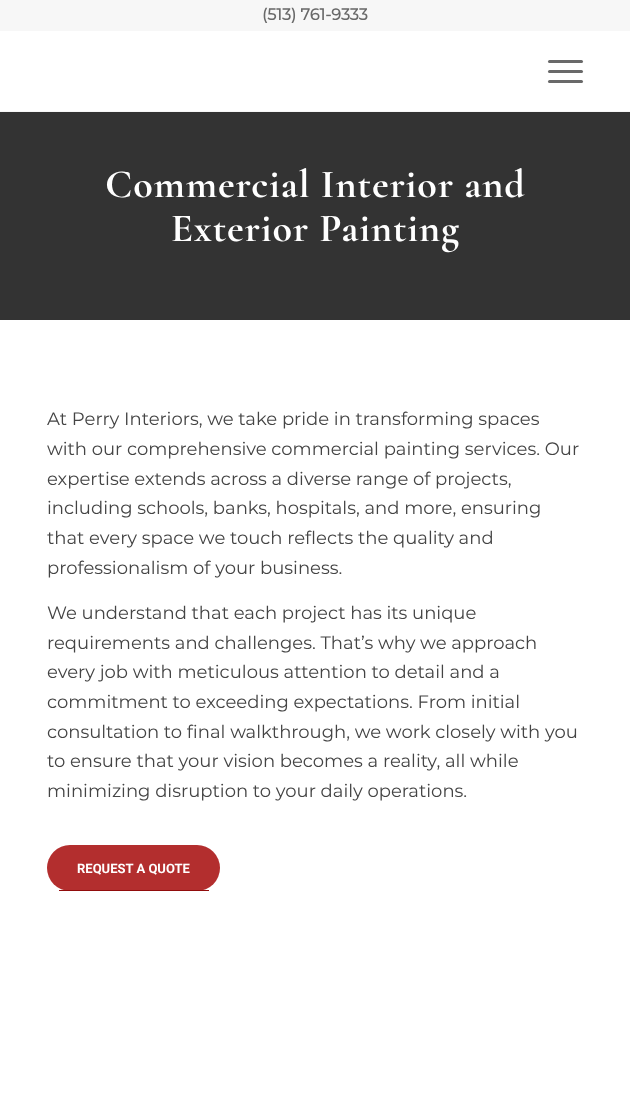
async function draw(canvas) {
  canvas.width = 630
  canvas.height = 1110
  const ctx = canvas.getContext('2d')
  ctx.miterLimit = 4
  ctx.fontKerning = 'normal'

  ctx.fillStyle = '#fff'
  ctx.fillRect(0, 0, 630, 1110)
  ctx.fillStyle = '#f7f7f7'
  ctx.fillRect(0, 0, 630, 31)
  ctx.font = 'bold 16px Montserrat'
  ctx.fillStyle = '#696969'
  ctx.fillText('(513) 761-9333', 262, 20)
  ctx.fillStyle = '#f7f7f7'
  ctx.fillRect(0, 111, 630, 1)
  ctx.fillStyle = '#696969'
  ctx.beginPath()
  ctx.roundRect(548, 70, 35, 3, 1.5)
  ctx.fill()
  ctx.beginPath()
  ctx.roundRect(548, 60, 35, 3, 1.5)
  ctx.fill()
  ctx.beginPath()
  ctx.roundRect(548, 80, 35, 3, 1.5)
  ctx.fill()
  ctx.fillStyle = '#333'
  ctx.fillRect(0, 112, 630, 208)
  ctx.letterSpacing = '1px'
  ctx.font = 'bold 40px Cormorant Garamond'
  ctx.fillStyle = '#fff'
  ctx.fillText('Commercial Interior and', 105, 197)
  ctx.fillText('Exterior Painting', 171, 241)
  ctx.letterSpacing = '0px'
  ctx.font = '100 18px Montserrat'
  ctx.fillStyle = '#444'
  ctx.fillText('At Perry Interiors, we take pride in transforming spaces', 47, 425)
  ctx.fillText('with our comprehensive commercial painting services. Our', 47, 455)
  ctx.fillText('expertise extends across a diverse range of projects,', 47, 485)
  ctx.fillText('including schools, banks, hospitals, and more, ensuring', 47, 514)
  ctx.fillText('that every space we touch reflects the quality and', 47, 544)
  ctx.fillText('professionalism of your business.', 47, 574)
  ctx.fillText('We understand that each project has its unique', 47, 619)
  ctx.fillText('requirements and challenges. That’s why we approach', 47, 649)
  ctx.fillText('every job with meticulous attention to detail and a', 47, 678)
  ctx.fillText('commitment to exceeding expectations. From initial', 47, 708)
  ctx.fillText('consultation to final walkthrough, we work closely with you', 47, 738)
  ctx.fillText('to ensure that your vision becomes a reality, all while', 47, 767)
  ctx.fillText('minimizing disruption to your daily operations.', 47, 797)
  ctx.fillStyle = '#b32e2e'
  ctx.beginPath()
  ctx.roundRect(47, 845, 173, 46, 23)
  ctx.fill()
  ctx.fillStyle = '#910c0c'
  ctx.fillRect(59, 890, 150, 1)
  ctx.font = 'bold 13px Roboto'
  ctx.fillStyle = '#fff'
  ctx.fillText('REQUEST A QUOTE', 77, 873)
}

draw(document.querySelector('canvas'))
